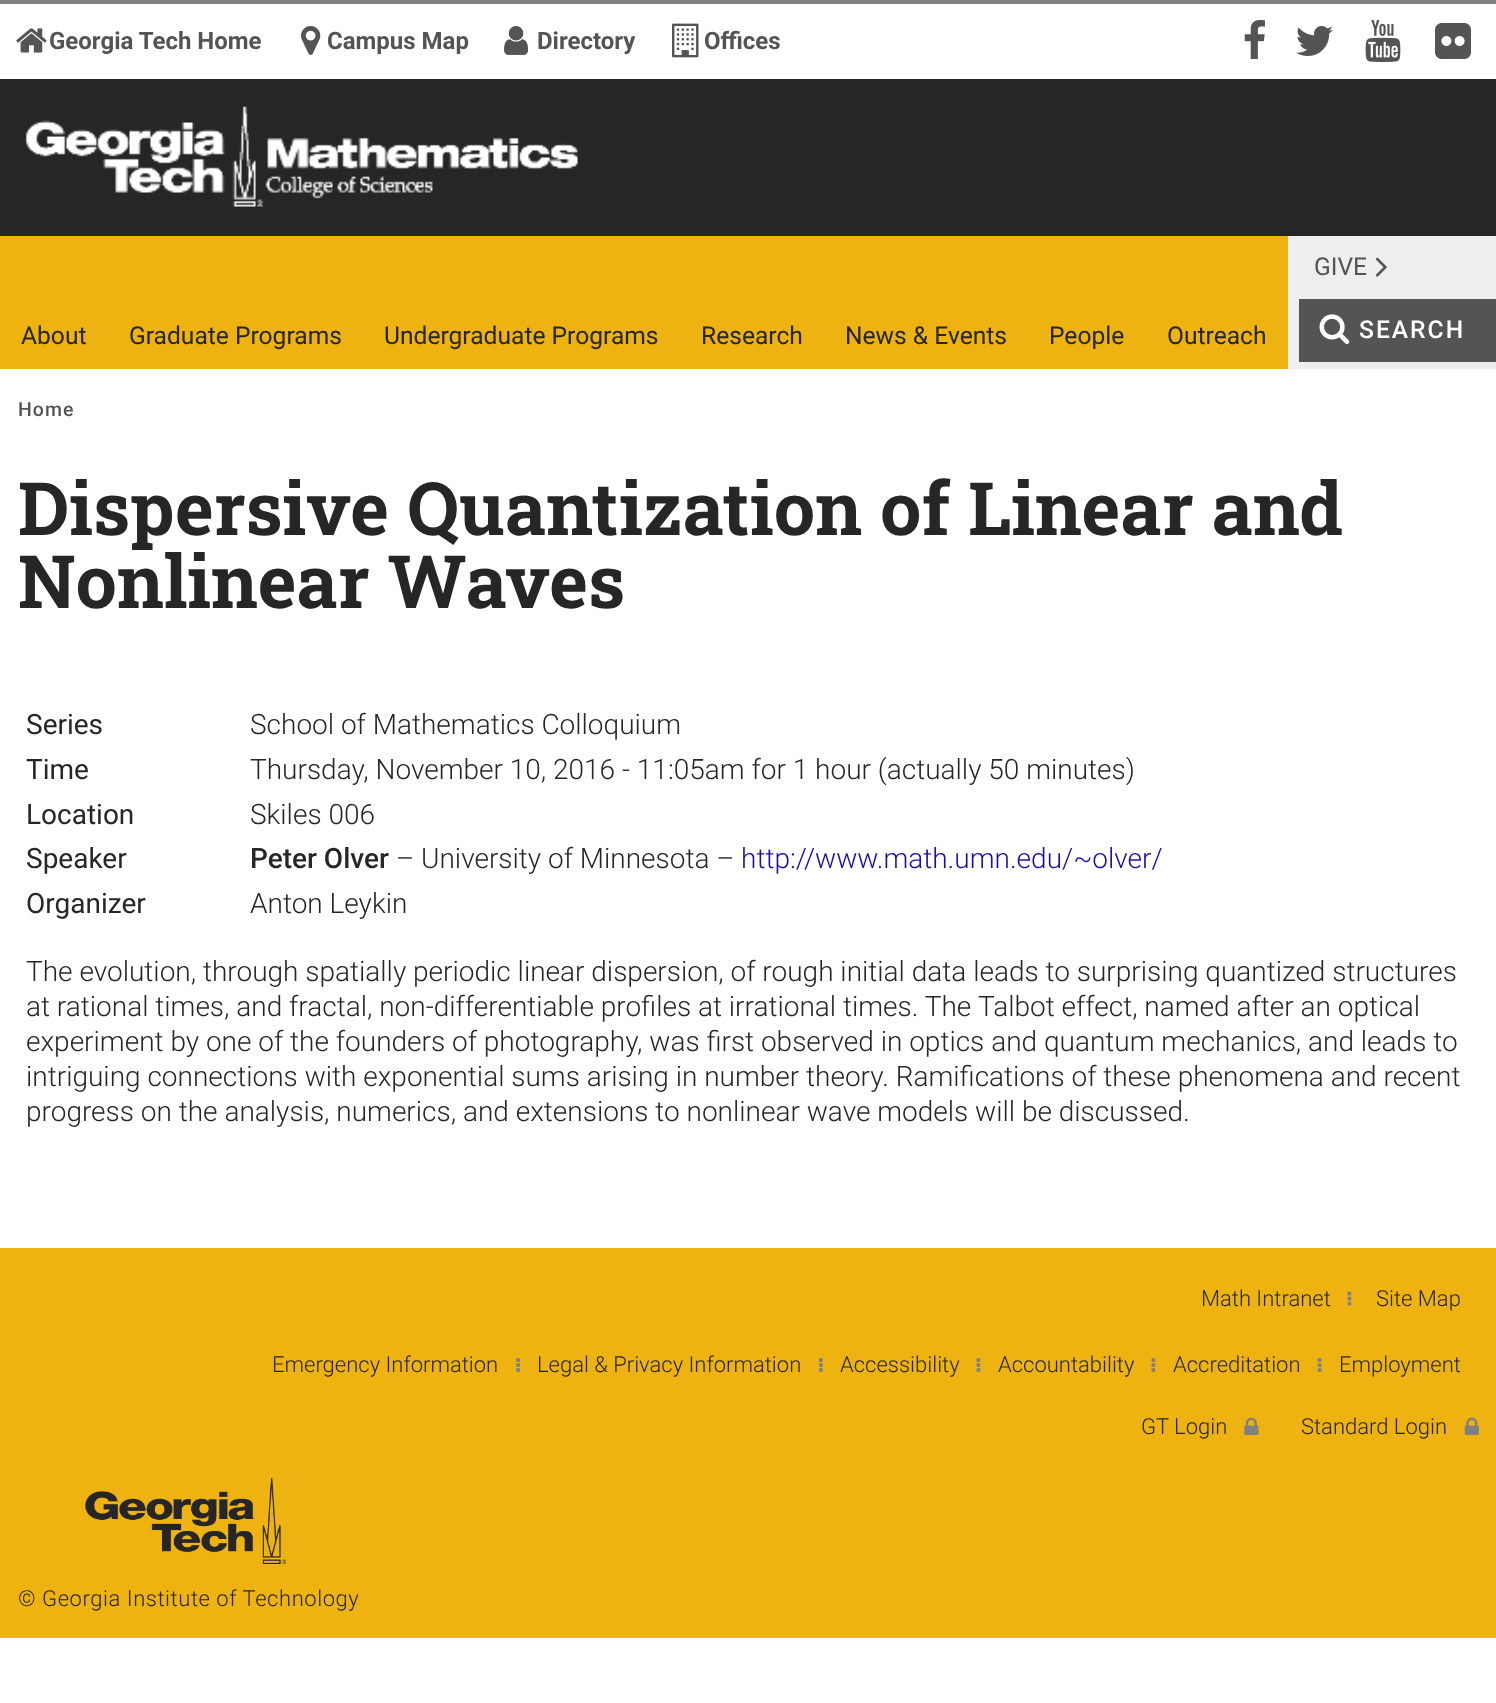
async function draw(canvas) {
  canvas.width = 1496
  canvas.height = 1703
  const ctx = canvas.getContext('2d')
  ctx.miterLimit = 4
  ctx.fontKerning = 'normal'
  async function loadImage(src) {
    const img = new Image()
    img.src = src
    await img.decode()
    return img
  }

  ctx.fillStyle = '#fff'
  ctx.fillRect(0, 0, 1496, 1703)
  ctx.fillStyle = '#eee'
  ctx.fillRect(1288, 236, 208, 133)
  ctx.fillStyle = '#808080'
  ctx.fillRect(0, 0, 1496, 4)
  ctx.drawImage(await loadImage('image0.png'), 16, 28, 31, 25)
  ctx.font = 'bold 24px Roboto'
  ctx.fillStyle = '#545454'
  ctx.fillText('Georgia Tech Home', 49, 49)
  ctx.drawImage(await loadImage('image1.png'), 301, 26, 20, 29)
  ctx.fillText('Campus Map', 327, 49)
  ctx.drawImage(await loadImage('image2.png'), 504, 26, 25, 29)
  ctx.fillText('Directory', 537, 49)
  ctx.drawImage(await loadImage('image3.png'), 672, 23, 27, 35)
  ctx.fillText('Offices', 704, 49)
  ctx.drawImage(await loadImage('image4.png'), 1244, 20, 21, 39)
  ctx.drawImage(await loadImage('image5.png'), 1296, 26, 37, 30)
  ctx.drawImage(await loadImage('image6.png'), 1365, 20, 36, 42)
  ctx.drawImage(await loadImage('image7.png'), 1435, 23, 36, 36)
  ctx.font = '24.6px Roboto'
  ctx.fillText('GIVE', 1314, 275)
  ctx.drawImage(await loadImage('image8.png'), 1375, 257, 12, 20)
  ctx.fillStyle = '#eeb211'
  ctx.fillRect(0, 236, 1288, 133)
  ctx.fillStyle = '#262626'
  ctx.fillText('About', 21, 344)
  ctx.fillText('Graduate Programs', 129, 344)
  ctx.fillText('Undergraduate Programs', 384, 344)
  ctx.fillText('Research', 701, 344)
  ctx.fillText('News & Events', 845, 344)
  ctx.fillText('People', 1049, 344)
  ctx.fillText('Outreach', 1167, 344)
  ctx.fillStyle = '#545454'
  ctx.fillRect(1299, 299, 197, 63)
  ctx.drawImage(await loadImage('image9.png'), 1319, 314, 31, 30)
  ctx.letterSpacing = '2px'
  ctx.font = '500 24.6px Roboto'
  ctx.fillStyle = '#fff'
  ctx.fillText('SEARCH', 1359, 338)
  ctx.letterSpacing = '1px'
  ctx.font = '500 19.5px Roboto'
  ctx.fillStyle = '#545454'
  ctx.fillText('Home', 18, 416)
  ctx.fillStyle = '#262626'
  ctx.fillRect(0, 79, 1496, 157)
  ctx.drawImage(await loadImage('image10.png'), 25, 106, 553, 101)
  ctx.letterSpacing = '0px'
  ctx.font = 'bold 73.5px Roboto Slab'
  ctx.fillText('Dispersive Quantization of Linear and', 18, 535)
  ctx.fillText('Nonlinear Waves', 18, 608)
  ctx.font = '28px Roboto'
  ctx.fillText('Series', 26, 734)
  ctx.font = '300 28px Roboto'
  ctx.fillText('School of Mathematics Colloquium', 250, 734)
  ctx.font = '28px Roboto'
  ctx.fillText('Time', 26, 779)
  ctx.font = '300 28px Roboto'
  ctx.fillText('Thursday, November 10, 2016 - 11:05am for 1 hour (actually 50 minutes)', 250, 779)
  ctx.font = '28px Roboto'
  ctx.fillText('Location', 26, 824)
  ctx.font = '300 28px Roboto'
  ctx.fillText('Skiles 006', 250, 824)
  ctx.font = '28px Roboto'
  ctx.fillText('Speaker', 26, 868)
  ctx.font = '500 28px Roboto'
  ctx.fillText('Peter Olver', 250, 868)
  ctx.font = '300 28px Roboto'
  ctx.fillText('– University of Minnesota –', 396, 868)
  ctx.fillStyle = '#1a0dab'
  ctx.fillText('http://www.math.umn.edu/~olver/', 741, 868)
  ctx.font = '28px Roboto'
  ctx.fillStyle = '#262626'
  ctx.fillText('Organizer', 26, 913)
  ctx.font = '300 28px Roboto'
  ctx.fillText('Anton Leykin', 250, 913)
  ctx.fillText('The evolution, through spatially periodic linear dispersion, of rough initial data leads to surprising quantized structures', 26, 981)
  ctx.fillText('at rational times, and fractal, non-differentiable profiles at irrational times. The', 26, 1016)
  ctx.fillText('Talbot effect, named after an optical', 978, 1016)
  ctx.fillText('experiment by one of the founders of photography, was first observed in optics and quantum mechanics, and leads to', 26, 1051)
  ctx.fillText('intriguing connections with exponential sums arising in number theory. Ramifications of these phenomena and recent', 26, 1086)
  ctx.fillText('progress on the analysis, numerics, and extensions to nonlinear wave models will be discussed.', 26, 1121)
  ctx.fillStyle = '#eeb211'
  ctx.fillRect(0, 1248, 1496, 390)
  ctx.font = '300 22px Roboto'
  ctx.fillStyle = '#262626'
  ctx.fillText('Math Intranet', 1201, 1306)
  ctx.drawImage(await loadImage('image11.png'), 1347, 1291, 5, 15)
  ctx.fillText('Site Map', 1376, 1306)
  ctx.fillText('Emergency Information', 272, 1372)
  ctx.drawImage(await loadImage('image12.png'), 516, 1358, 4, 14)
  ctx.fillText('Legal & Privacy Information', 537, 1372)
  ctx.drawImage(await loadImage('image13.png'), 819, 1358, 4, 14)
  ctx.fillText('Accessibility', 840, 1372)
  ctx.drawImage(await loadImage('image14.png'), 976, 1358, 5, 14)
  ctx.fillText('Accountability', 998, 1372)
  ctx.drawImage(await loadImage('image14.png'), 1151, 1358, 5, 14)
  ctx.fillText('Accreditation', 1173, 1372)
  ctx.drawImage(await loadImage('image15.png'), 1317, 1358, 5, 14)
  ctx.fillText('Employment', 1339, 1372)
  ctx.fillText('GT Login', 1141, 1434)
  ctx.drawImage(await loadImage('image16.png'), 1244, 1417, 15, 18)
  ctx.fillText('Standard Login', 1301, 1434)
  ctx.drawImage(await loadImage('image17.png'), 1464, 1417, 15, 18)
  ctx.drawImage(await loadImage('image18.png'), 85, 1478, 202, 86)
  ctx.letterSpacing = '0.55px'
  ctx.fillText('© Georgia Institute of Technology', 18, 1606)
}

draw(document.querySelector('canvas'))
